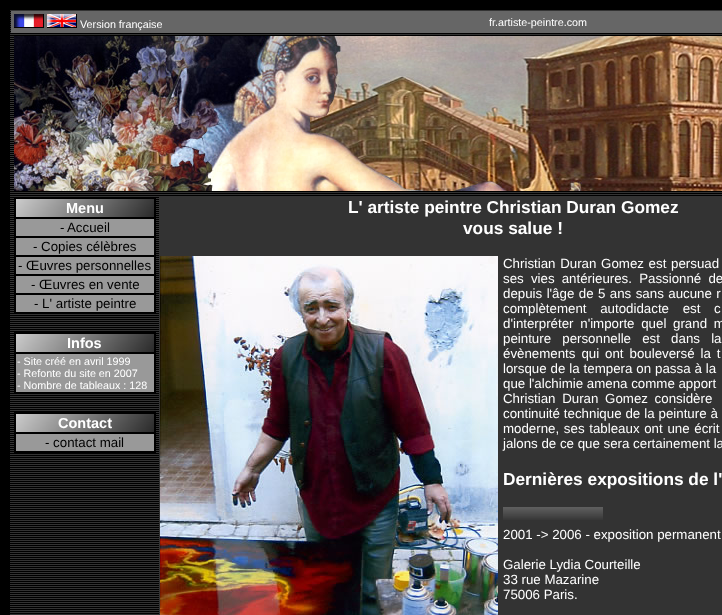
async function draw(canvas) {
  canvas.width = 722
  canvas.height = 615
  const ctx = canvas.getContext('2d')
  ctx.miterLimit = 4
  ctx.fontKerning = 'normal'
  async function loadImage(src) {
    const img = new Image()
    img.src = src
    await img.decode()
    return img
  }

  ctx.fillStyle = '#000'
  ctx.fillRect(0, 0, 722, 615)
  ctx.fillStyle = '#333'
  ctx.fillRect(10, 10, 712, 605)
  ctx.drawImage(await loadImage('image0.png'), 10, 11, 712, 603)
  ctx.fillStyle = '#666'
  ctx.fillRect(11, 11, 711, 22)
  ctx.drawImage(await loadImage('image1.png'), 14, 14, 30, 14)
  ctx.drawImage(await loadImage('image2.png'), 47, 14, 30, 14)
  ctx.font = '10.75px Liberation Sans'
  ctx.fillStyle = '#fff'
  ctx.fillText('Version française', 80, 28)
  ctx.fillText('fr.artiste-peintre.com', 489, 26)
  ctx.drawImage(await loadImage('image3.png'), 14, 36, 708, 155)
  ctx.fillStyle = '#000'
  ctx.fillRect(14, 198, 142, 115)
  ctx.drawImage(await loadImage('image4.png'), 16, 199, 138, 18)
  ctx.font = 'bold 14.5px Liberation Sans'
  ctx.fillStyle = '#fff'
  ctx.fillText('Menu', 66, 213)
  ctx.fillStyle = '#999'
  ctx.fillRect(16, 219, 138, 17)
  ctx.font = '13.3px Liberation Sans'
  ctx.fillStyle = '#000'
  ctx.fillText('-', 60, 232)
  ctx.fillText('Accueil', 67, 232)
  ctx.fillStyle = '#999'
  ctx.fillRect(16, 238, 138, 17)
  ctx.fillStyle = '#000'
  ctx.fillText('- Copies célèbres', 33, 251)
  ctx.fillStyle = '#999'
  ctx.fillRect(16, 257, 138, 17)
  ctx.fillStyle = '#000'
  ctx.fillText('- Œuvres personnelles', 18, 270)
  ctx.fillStyle = '#999'
  ctx.fillRect(16, 276, 138, 17)
  ctx.fillStyle = '#000'
  ctx.fillText('- Œuvres en vente', 31, 289)
  ctx.fillStyle = '#999'
  ctx.fillRect(16, 295, 138, 17)
  ctx.fillStyle = '#000'
  ctx.fillText('- L\' artiste peintre', 34, 308)
  ctx.fillRect(14, 332, 142, 61)
  ctx.drawImage(await loadImage('image4.png'), 16, 334, 138, 18)
  ctx.font = 'bold 14.5px Liberation Sans'
  ctx.fillStyle = '#fff'
  ctx.fillText('Infos', 67, 348)
  ctx.fillStyle = '#999'
  ctx.fillRect(16, 354, 138, 38)
  ctx.font = '10.75px Liberation Sans'
  ctx.fillStyle = '#fff'
  ctx.fillText('- Site créé en avril 1999', 17, 365)
  ctx.fillText('- Refonte du site en 2007', 17, 377)
  ctx.fillText('- Nombre de tableaux : 128', 17, 389)
  ctx.fillStyle = '#000'
  ctx.fillRect(14, 412, 142, 41)
  ctx.drawImage(await loadImage('image4.png'), 16, 414, 138, 18)
  ctx.font = 'bold 14.5px Liberation Sans'
  ctx.fillStyle = '#fff'
  ctx.fillText('Contact', 58, 428)
  ctx.fillStyle = '#999'
  ctx.fillRect(16, 434, 138, 17)
  ctx.font = '13.3px Liberation Sans'
  ctx.fillStyle = '#000'
  ctx.fillText('- contact mail', 45, 447)
  ctx.fillStyle = '#333'
  ctx.fillRect(159, 197, 563, 417)
  ctx.font = 'bold 17.3px Liberation Sans'
  ctx.fillStyle = '#fff'
  ctx.fillText('L\' artiste peintre Christian Duran Gomez', 348, 213)
  ctx.fillText('vous salue !', 463, 234)
  ctx.drawImage(await loadImage('image5.png'), 160, 256, 338, 359)
  ctx.wordSpacing = '1px'
  ctx.font = '13.3px Liberation Sans'
  ctx.fillText('Christian Duran Gomez est persuad', 503, 268)
  ctx.wordSpacing = '3.5px'
  ctx.fillText('ses vies antérieures. Passionné de', 503, 283)
  ctx.wordSpacing = '0.75px'
  ctx.fillText('depuis l\'âge de 5 ans sans aucune r', 503, 298)
  ctx.wordSpacing = '10px'
  ctx.fillText('complètement autodidacte est c', 503, 313)
  ctx.wordSpacing = '3px'
  ctx.fillText('d\'interpréter n\'importe quel grand m', 503, 328)
  ctx.wordSpacing = '7.5px'
  ctx.fillText('peinture personnelle est dans la', 503, 343)
  ctx.wordSpacing = '2.25px'
  ctx.fillText('évènements qui ont bouleversé la t', 503, 358)
  ctx.wordSpacing = '0.25px'
  ctx.fillText('lorsque de la tempera on passa à la', 503, 373)
  ctx.wordSpacing = '0px'
  ctx.fillText('que l\'alchimie amena comme apport', 503, 388)
  ctx.wordSpacing = '3px'
  ctx.fillText('Christian Duran Gomez considère', 503, 403)
  ctx.wordSpacing = '0.25px'
  ctx.fillText('continuité technique de la peinture à', 503, 418)
  ctx.wordSpacing = '1px'
  ctx.fillText('moderne, ses tableaux ont une écrit', 503, 433)
  ctx.wordSpacing = '0px'
  ctx.fillText('jalons de ce que sera certainement la', 503, 448)
  ctx.font = 'bold 17.3px Liberation Sans'
  ctx.fillText('Dernières expositions de l\'', 503, 485)
  ctx.drawImage(await loadImage('image6.png'), 503, 507, 100, 13)
  ctx.font = '13.3px Liberation Sans'
  ctx.fillText('2001 -> 2006 - exposition permanent', 503, 539)
  ctx.fillText('Galerie Lydia Courteille', 503, 569)
  ctx.fillText('33 rue Mazarine', 503, 584)
  ctx.fillText('75006 Paris.', 503, 599)
}

draw(document.querySelector('canvas'))
